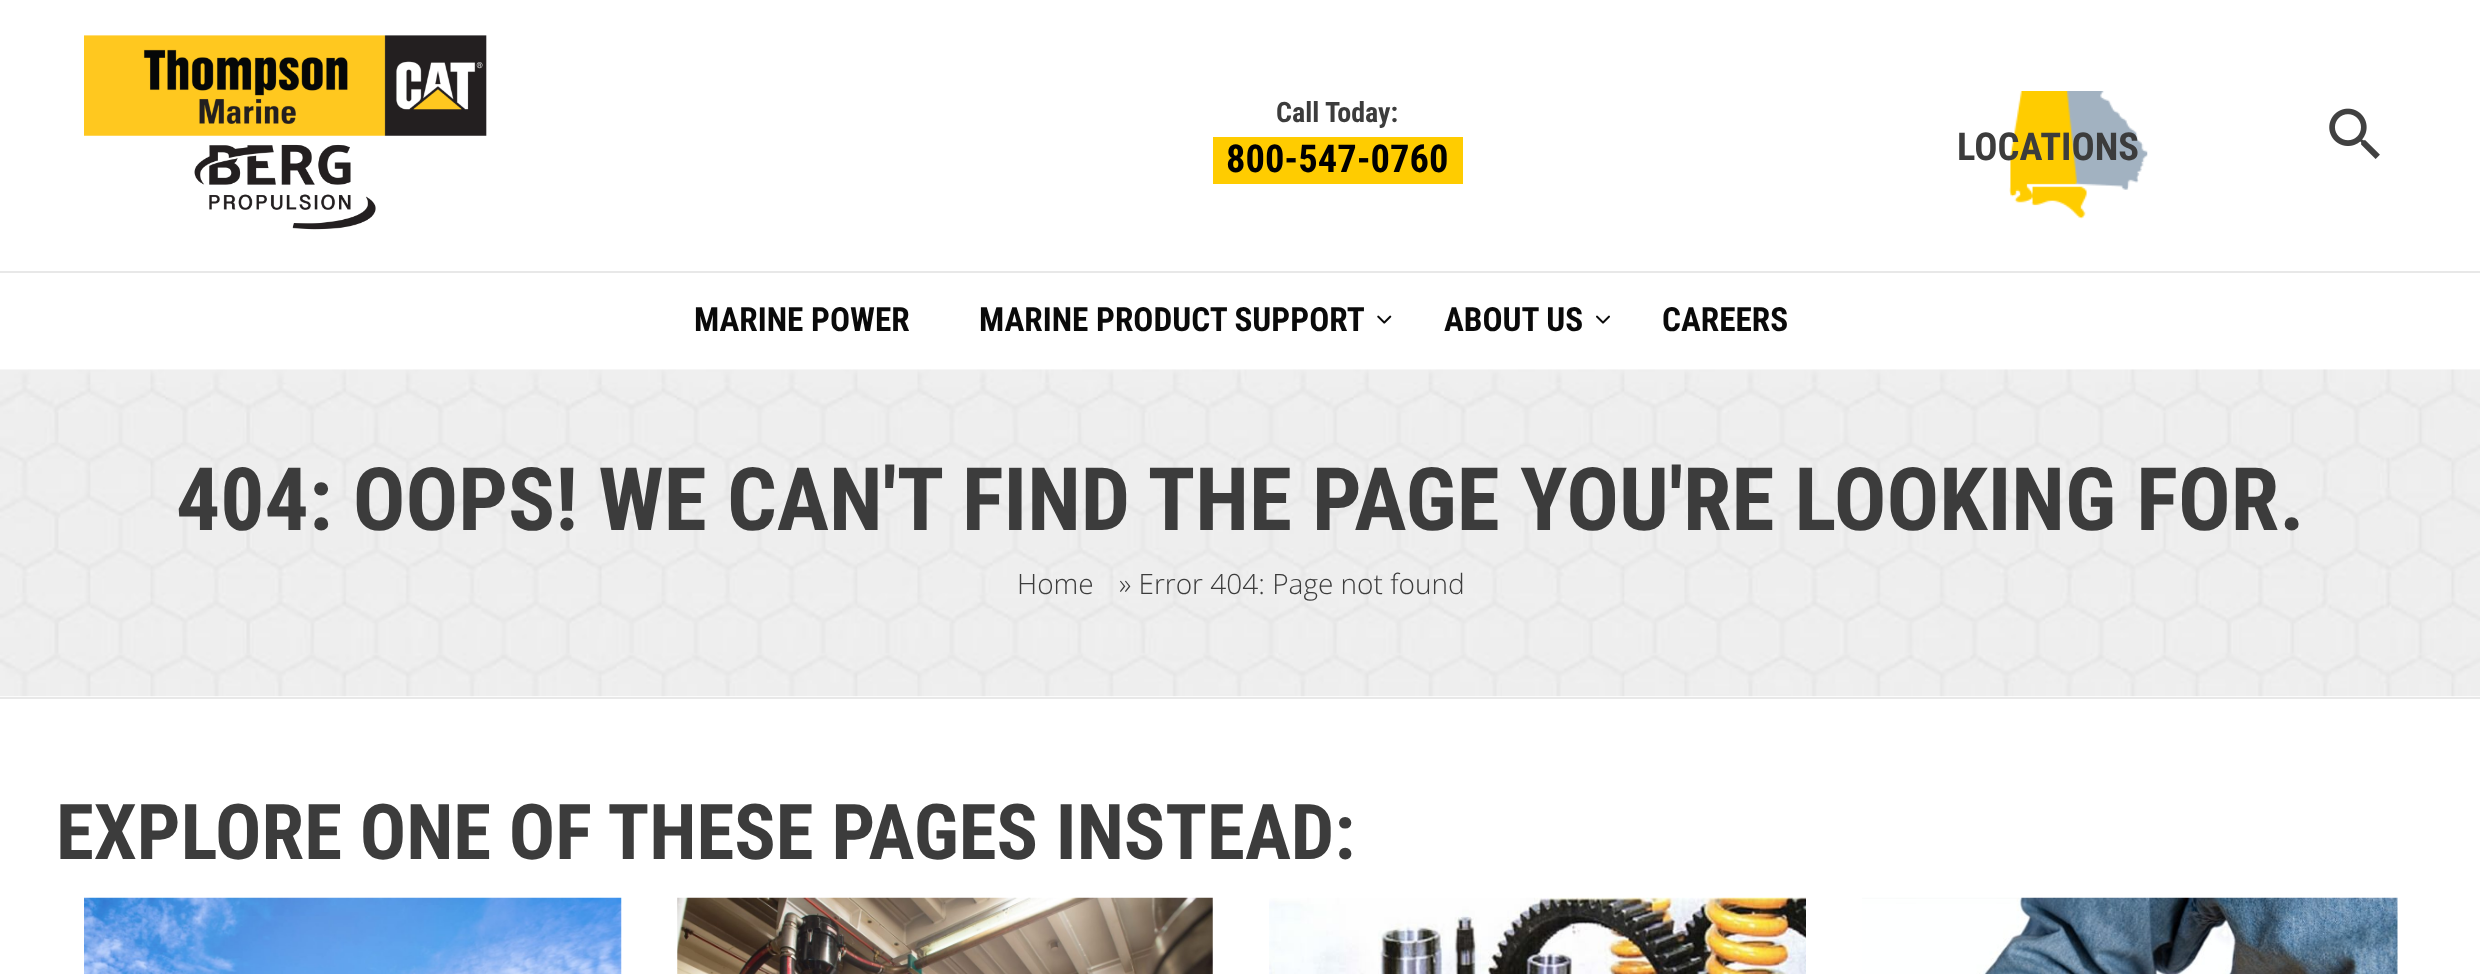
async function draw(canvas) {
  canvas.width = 2480
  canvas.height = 974
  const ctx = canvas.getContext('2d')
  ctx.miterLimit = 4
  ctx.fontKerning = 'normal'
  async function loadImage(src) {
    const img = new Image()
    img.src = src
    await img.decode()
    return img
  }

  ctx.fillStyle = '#fff'
  ctx.fillRect(0, 0, 2480, 974)
  ctx.drawImage(await loadImage('image0.png'), 84, 35, 403, 195)
  ctx.font = 'bold 28px Roboto Condensed'
  ctx.fillStyle = '#3c3c3c'
  ctx.fillText('Call Today:', 1276, 122)
  ctx.fillStyle = '#fc0'
  ctx.fillRect(1213, 137, 250, 47)
  ctx.font = 'bold 38.5px Roboto Condensed'
  ctx.fillStyle = '#000'
  ctx.fillText('800-547-0760', 1226, 172)
  ctx.drawImage(await loadImage('image1.png'), 2009, 91, 139, 128)
  ctx.fillStyle = '#3c3c3c'
  ctx.fillText('LOCATIONS', 1957, 160)
  ctx.drawImage(await loadImage('image2.png'), 2329, 108, 51, 51)
  ctx.fillStyle = '#e8e8e8'
  ctx.fillRect(0, 271, 2480, 2)
  ctx.font = 'bold 33.25px Roboto Condensed'
  ctx.fillStyle = '#0a0a0a'
  ctx.fillText('MARINE POWER', 694, 331)
  ctx.fillText('MARINE PRODUCT SUPPORT', 979, 331)
  ctx.drawImage(await loadImage('image3.png'), 1377, 315, 15, 9)
  ctx.fillText('ABOUT US', 1444, 331)
  ctx.drawImage(await loadImage('image4.png'), 1596, 315, 14, 9)
  ctx.fillText('CAREERS', 1662, 331)
  ctx.fillStyle = '#e8e8e8'
  ctx.fillRect(0, 697, 2480, 2)
  ctx.drawImage(await loadImage('image5.png'), 0, 369, 2480, 328)
  ctx.font = 'bold 87.5px Roboto Condensed'
  ctx.fillStyle = '#3c3c3c'
  ctx.fillText('404: OOPS! WE CAN\'T FIND THE PAGE YOU\'RE LOOKING FOR.', 176, 530)
  ctx.font = '300 28px Open Sans'
  ctx.fillText('Home', 1017, 594)
  ctx.fillText('» Error 404: Page not found', 1119, 594)
  ctx.font = 'bold 77px Roboto Condensed'
  ctx.fillText('EXPLORE ONE OF THESE PAGES INSTEAD:', 56, 859)
  ctx.drawImage(await loadImage('image6.png'), 84, 897, 538, 77)
  ctx.drawImage(await loadImage('image7.png'), 677, 897, 536, 77)
  ctx.drawImage(await loadImage('image8.png'), 1269, 897, 537, 77)
  ctx.drawImage(await loadImage('image9.png'), 1862, 897, 536, 77)
}

draw(document.querySelector('canvas'))
